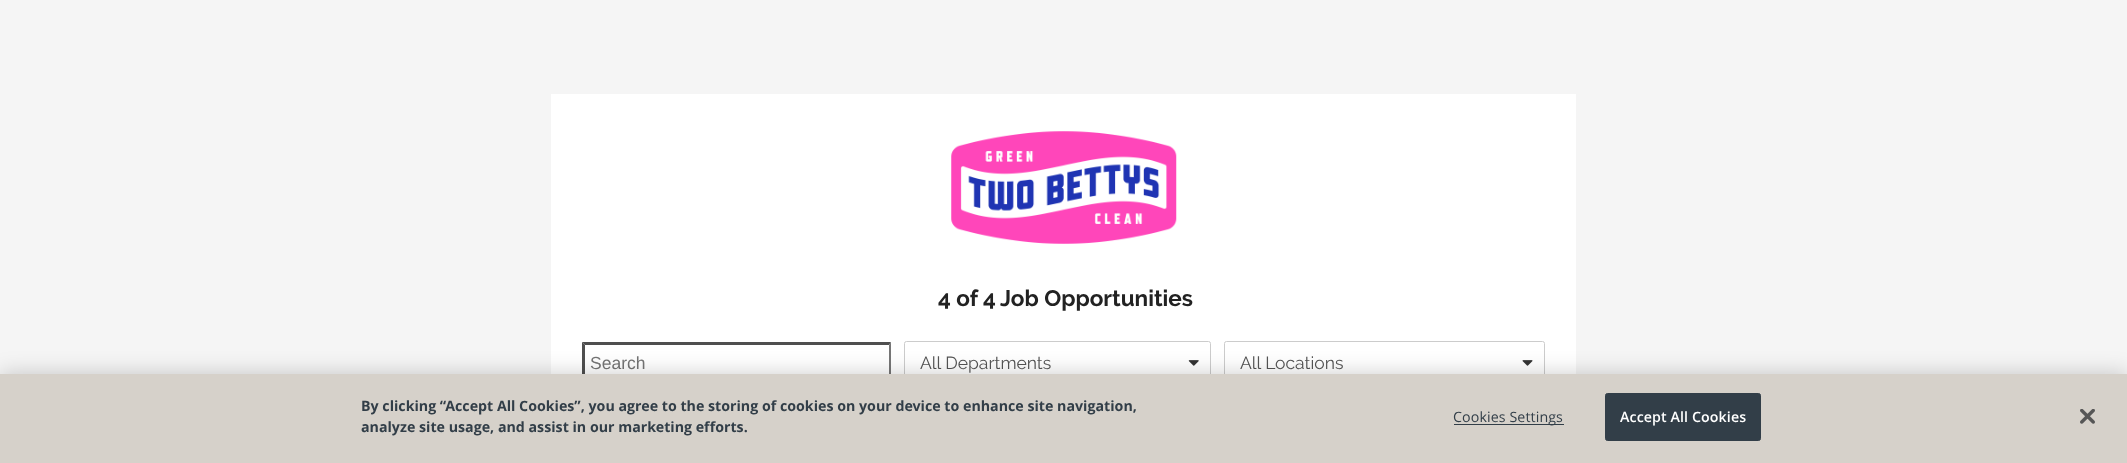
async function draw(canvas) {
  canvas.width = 2127
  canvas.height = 463
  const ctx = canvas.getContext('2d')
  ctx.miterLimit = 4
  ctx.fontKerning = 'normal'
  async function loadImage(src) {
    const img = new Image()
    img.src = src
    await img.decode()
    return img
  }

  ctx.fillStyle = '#f5f5f5'
  ctx.fillRect(0, 0, 2127, 463)
  ctx.fillStyle = '#fff'
  ctx.fillRect(551, 94, 1025, 280)
  ctx.drawImage(await loadImage('image0.png'), 951, 131, 226, 113)
  ctx.font = 'bold 22.5px Raleway'
  ctx.fillStyle = '#222'
  ctx.fillText('4 of 4', 938, 306)
  ctx.fillText('Job Opportunities', 1000, 306)
  ctx.fillStyle = '#4f4f4f'
  ctx.beginPath()
  ctx.moveTo(582, 342)
  ctx.lineTo(891, 342)
  ctx.lineTo(889, 345)
  ctx.lineTo(585, 345)
  ctx.closePath()
  ctx.fill()
  ctx.fillStyle = '#767676'
  ctx.beginPath()
  ctx.moveTo(891, 342)
  ctx.lineTo(891, 384)
  ctx.lineTo(889, 381)
  ctx.lineTo(889, 345)
  ctx.closePath()
  ctx.fill()
  ctx.fillStyle = '#4f4f4f'
  ctx.beginPath()
  ctx.moveTo(582, 384)
  ctx.lineTo(582, 342)
  ctx.lineTo(585, 345)
  ctx.lineTo(585, 381)
  ctx.closePath()
  ctx.fill()
  ctx.font = '17.5px Liberation Sans'
  ctx.fillStyle = '#757575'
  ctx.fillText('Search', 590, 369)
  ctx.beginPath()
  ctx.roundRect(904.5, 341.5, 306, 42, 2)
  ctx.strokeStyle = '#ccc'
  ctx.stroke()
  ctx.font = '17.5px Raleway'
  ctx.fillStyle = '#555'
  ctx.fillText('All Departments', 920, 369)
  ctx.drawImage(await loadImage('image1.png'), 1188, 360, 11, 6)
  ctx.beginPath()
  ctx.roundRect(1224.5, 341.5, 320, 42, 2)
  ctx.stroke()
  ctx.fillText('All Locations', 1240, 369)
  ctx.drawImage(await loadImage('image2.png'), 1522, 360, 11, 6)
  ctx.fillStyle = '#00000033'
  ctx.filter = 'blur(11px)'
  ctx.beginPath()
  ctx.rect(0, 374, 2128, 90)
  ctx.fill()
  ctx.filter = 'none'
  ctx.fillStyle = '#d6d1ca'
  ctx.fillRect(0, 374, 2127, 89)
  ctx.font = 'bold 14.23px Open Sans'
  ctx.fillStyle = '#323e48'
  ctx.fillText('By clicking “Accept All Cookies”, you agree to the storing of cookies on your device to enhance site navigation,', 361, 411)
  ctx.fillText('analyze site usage, and assist in our marketing efforts.', 361, 432)
  ctx.fillRect(1454, 424, 110, 1)
  ctx.letterSpacing = '0.1px'
  ctx.font = '14.23px Open Sans'
  ctx.fillText('Cookies Settings', 1453, 422)
  ctx.beginPath()
  ctx.roundRect(1605.5, 393.5, 155, 47, 2)
  ctx.fill()
  ctx.strokeStyle = '#323e48'
  ctx.stroke()
  ctx.font = '600 14.23px Open Sans'
  ctx.fillStyle = '#fff'
  ctx.fillText('Accept All Cookies', 1620, 422)
  ctx.drawImage(await loadImage('image3.png'), 2080, 409, 15, 15)
}

draw(document.querySelector('canvas'))
